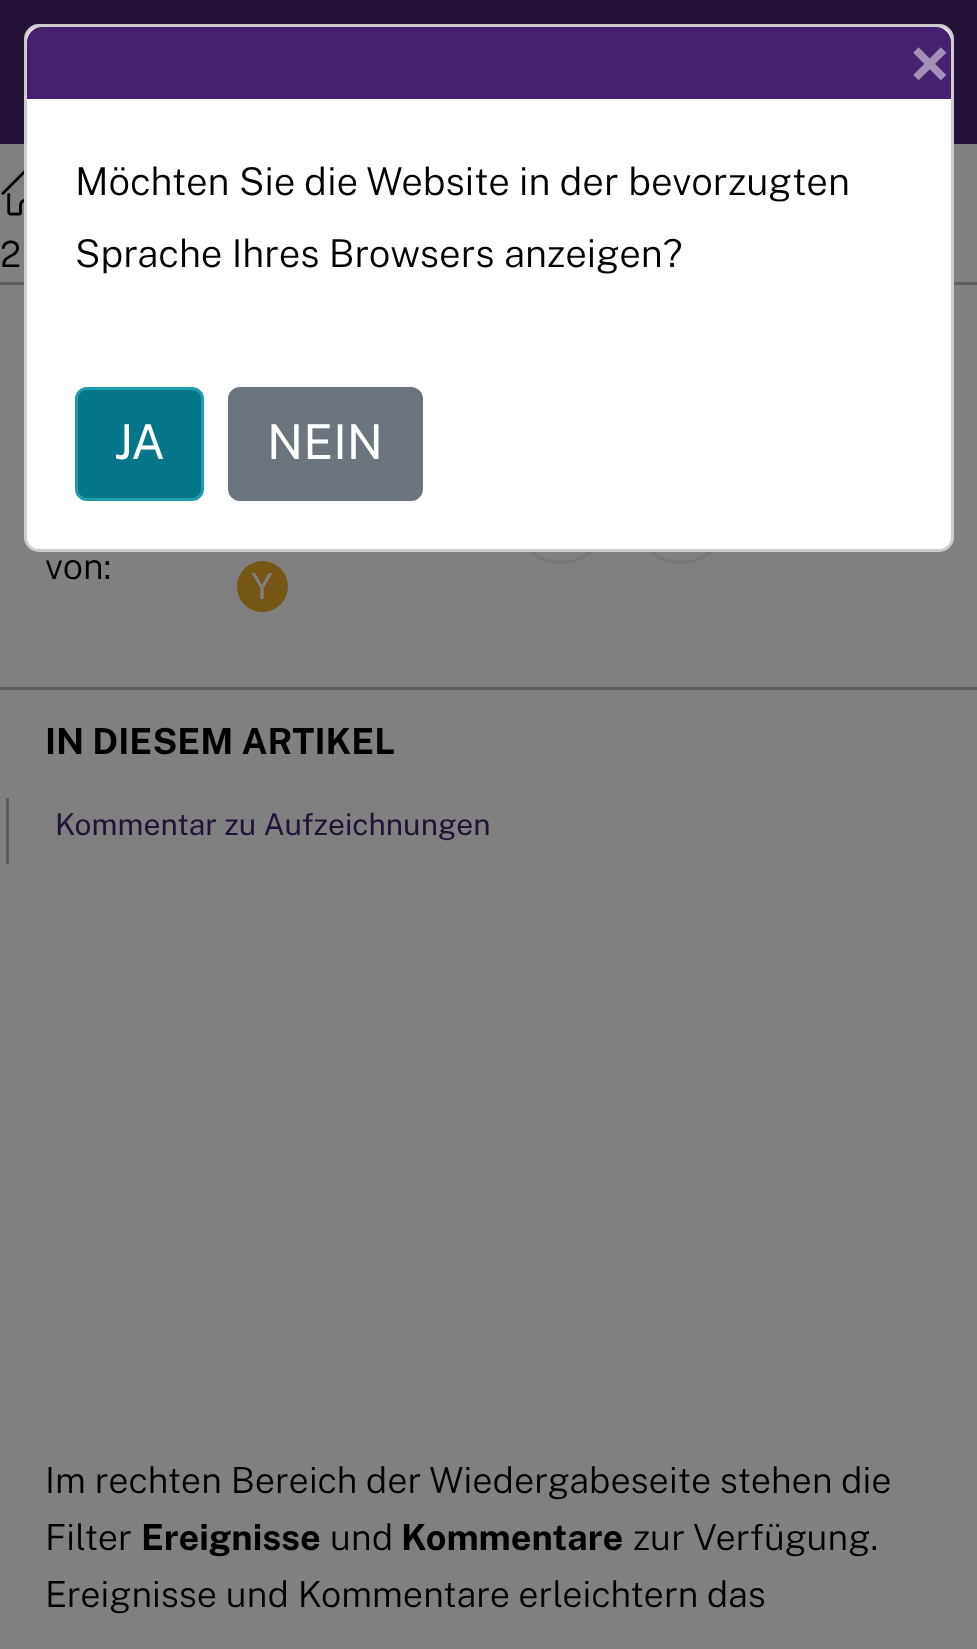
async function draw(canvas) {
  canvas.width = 977
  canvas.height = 1649
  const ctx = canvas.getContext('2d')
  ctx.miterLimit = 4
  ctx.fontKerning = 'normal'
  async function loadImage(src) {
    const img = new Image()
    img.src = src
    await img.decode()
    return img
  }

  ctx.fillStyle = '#808080'
  ctx.fillRect(0, 0, 977, 1649)
  ctx.fillStyle = '#231138'
  ctx.fillRect(0, 0, 977, 144)
  ctx.fillStyle = '#5f5f5f'
  ctx.fillRect(0, 282, 977, 3)
  ctx.beginPath()
  ctx.arc(561, 516, 46.5, 0, 2 * Math.PI)
  ctx.strokeStyle = '#777'
  ctx.lineWidth = 3
  ctx.stroke()
  ctx.beginPath()
  ctx.arc(681, 516, 46.5, 0, 2 * Math.PI)
  ctx.stroke()
  ctx.fillStyle = '#fff'
  ctx.beginPath()
  ctx.roundRect(24, 24, 930, 528, 15)
  ctx.fill()
  ctx.beginPath()
  ctx.roundRect(25.5, 25.5, 927, 525, 13.5)
  ctx.strokeStyle = '#00000033'
  ctx.stroke()
  ctx.fillStyle = '#452170'
  ctx.beginPath()
  ctx.roundRect(27, 27, 924, 72, [15, 15, 0, 0])
  ctx.fill()
  ctx.font = 'bold 72px Public Sans'
  ctx.fillStyle = '#a290b8'
  ctx.fillText('×', 909, 90)
  ctx.font = '300 38.4px Public Sans'
  ctx.fillStyle = '#000'
  ctx.fillText('Möchten Sie die Website in der bevorzugten', 75, 195)
  ctx.fillText('Sprache Ihres Browsers anzeigen?', 75, 267)
  ctx.fillStyle = '#05758a'
  ctx.beginPath()
  ctx.roundRect(76.5, 388.5, 126, 111, 10.5)
  ctx.fill()
  ctx.strokeStyle = '#1c9cad'
  ctx.stroke()
  ctx.font = '48px Public Sans'
  ctx.fillStyle = '#fff'
  ctx.fillText('JA', 114, 459)
  ctx.fillStyle = '#6c757d'
  ctx.beginPath()
  ctx.roundRect(229.5, 388.5, 192, 111, 10.5)
  ctx.fill()
  ctx.strokeStyle = '#6c757d'
  ctx.stroke()
  ctx.fillStyle = '#fff'
  ctx.fillText('NEIN', 267, 459)
  ctx.drawImage(await loadImage('image0.png'), 1, 170, 23, 46)
  ctx.font = '300 36px Public Sans'
  ctx.fillStyle = '#000'
  ctx.fillText('2', 0, 267)
  ctx.fillStyle = '#5f5f5f'
  ctx.fillRect(0, 687, 977, 3)
  ctx.fillStyle = '#000'
  ctx.fillText('von:', 45, 579)
  ctx.fillStyle = '#755614'
  ctx.beginPath()
  ctx.arc(262.5, 586.5, 25.5, 0, 2 * Math.PI)
  ctx.fill()
  ctx.font = '36px Public Sans'
  ctx.fillStyle = '#808080'
  ctx.fillText('Y', 251, 599)
  ctx.font = 'bold 36px Public Sans'
  ctx.fillStyle = '#000'
  ctx.fillText('IN DIESEM ARTIKEL', 45, 754)
  ctx.fillStyle = '#595a5a'
  ctx.fillRect(6, 798, 3, 66)
  ctx.font = '30px Public Sans'
  ctx.fillStyle = '#231138'
  ctx.fillText('Kommentar zu Aufzeichnungen', 55, 835)
  ctx.font = '300 36px Public Sans'
  ctx.fillStyle = '#000'
  ctx.fillText('Im rechten Bereich der Wiedergabeseite stehen die', 45, 1493)
  ctx.fillText('Filter', 45, 1550)
  ctx.font = 'bold 36px Public Sans'
  ctx.fillText('Ereignisse', 141, 1550)
  ctx.font = '300 36px Public Sans'
  ctx.fillText('und', 330, 1550)
  ctx.font = 'bold 36px Public Sans'
  ctx.fillText('Kommentare', 401, 1550)
  ctx.font = '300 36px Public Sans'
  ctx.fillText('zur Verfügung.', 633, 1550)
  ctx.fillText('Ereignisse und Kommentare erleichtern das', 45, 1607)
}

draw(document.querySelector('canvas'))
